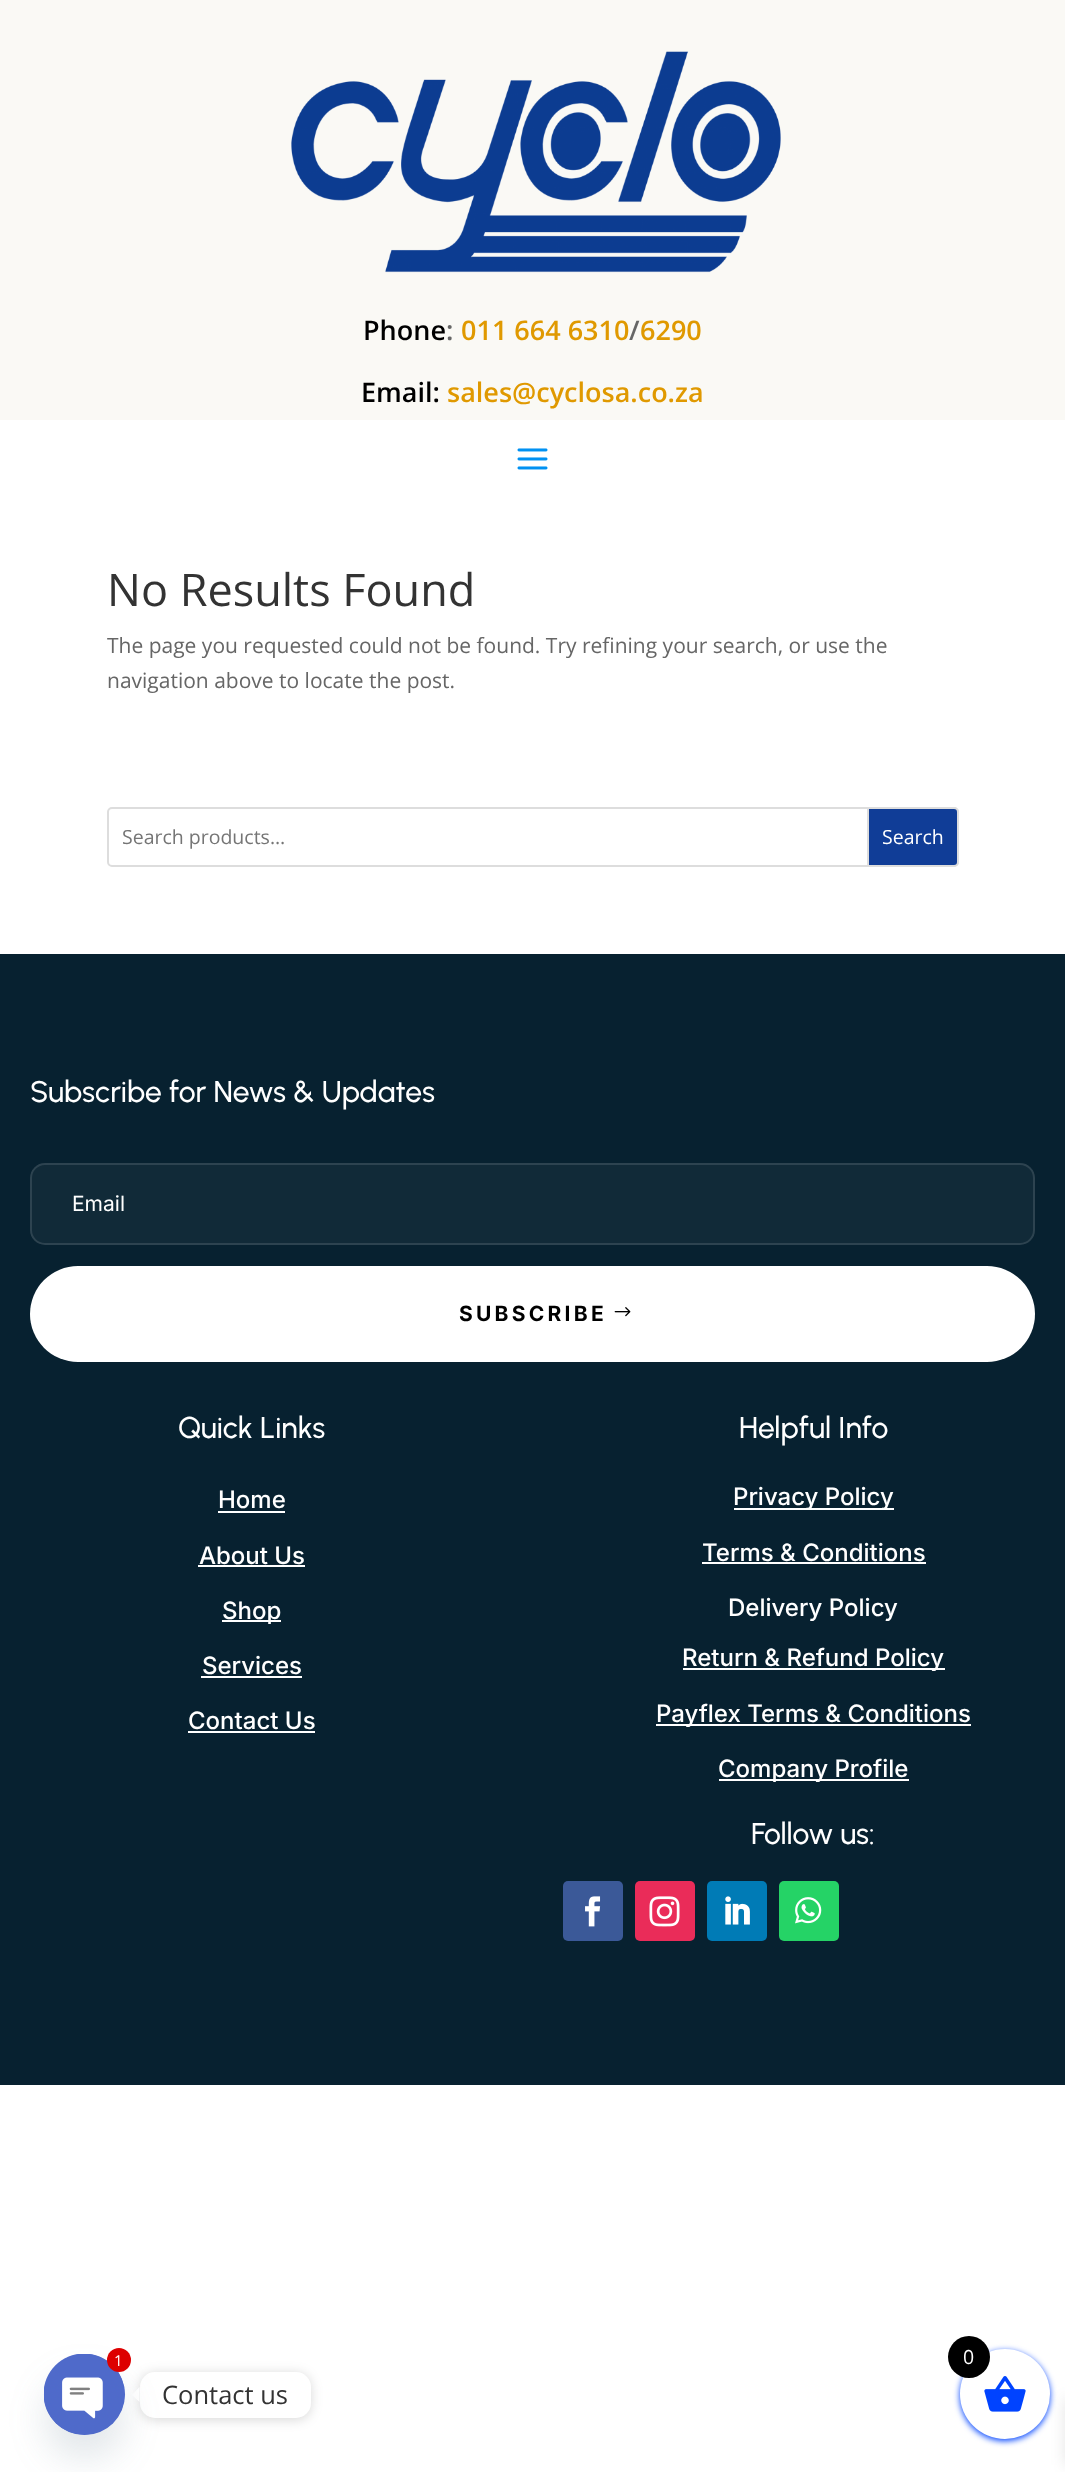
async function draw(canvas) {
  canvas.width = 1065
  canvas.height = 2472
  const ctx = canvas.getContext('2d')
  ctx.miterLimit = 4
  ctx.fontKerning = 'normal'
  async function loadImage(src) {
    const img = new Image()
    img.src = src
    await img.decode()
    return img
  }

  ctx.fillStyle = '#fff'
  ctx.fillRect(0, 0, 1065, 2472)
  ctx.fillStyle = '#faf9f5'
  ctx.fillRect(0, 0, 1065, 420)
  ctx.drawImage(await loadImage('image0.png'), 291, 51, 490, 222)
  ctx.font = '600 27px Open Sans'
  ctx.fillStyle = '#000'
  ctx.fillText('Phone', 363, 340)
  ctx.fillStyle = '#666'
  ctx.fillText(':', 446, 340)
  ctx.fillStyle = '#e09900'
  ctx.fillText('011 664 6310', 461, 340)
  ctx.fillStyle = '#666'
  ctx.fillText('/', 629, 340)
  ctx.fillStyle = '#e09900'
  ctx.fillText('6290', 640, 340)
  ctx.fillStyle = '#000'
  ctx.fillText('Email:', 361, 402)
  ctx.fillStyle = '#e09900'
  ctx.fillText('sales@cyclosa.co.za', 447, 402)
  ctx.drawImage(await loadImage('image1.png'), 517, 448, 31, 22)
  ctx.font = '45px Open Sans'
  ctx.fillStyle = '#333'
  ctx.fillText('No Results Found', 107, 606)
  ctx.font = '21px Open Sans'
  ctx.fillStyle = '#666'
  ctx.fillText('The page you requested could not be found. Try refining your search, or use the', 107, 653)
  ctx.fillText('navigation above to locate the post.', 107, 688)
  ctx.beginPath()
  ctx.roundRect(108, 808, 850, 58, 4)
  ctx.strokeStyle = '#ddd'
  ctx.lineWidth = 2
  ctx.stroke()
  ctx.font = '19.5px Open Sans'
  ctx.fillStyle = '#757575'
  ctx.fillText('Search products…', 122, 844)
  ctx.fillStyle = '#103d97'
  ctx.beginPath()
  ctx.roundRect(868, 808, 90, 58, [0, 4, 4, 0])
  ctx.fill()
  ctx.stroke()
  ctx.fillStyle = '#fff'
  ctx.fillText('Search', 882, 844)
  ctx.fillStyle = '#072130'
  ctx.fillRect(0, 954, 1065, 1131)
  ctx.font = '500 30px Urbanist'
  ctx.fillStyle = '#fff'
  ctx.fillText('Subscribe for News & Updates', 30, 1102)
  ctx.fillStyle = '#112a38'
  ctx.beginPath()
  ctx.roundRect(30, 1163, 1005, 82, 15)
  ctx.fill()
  ctx.beginPath()
  ctx.roundRect(31, 1164, 1003, 80, 14)
  ctx.strokeStyle = '#ffffff1f'
  ctx.stroke()
  ctx.font = '21px Inter'
  ctx.fillStyle = '#fff'
  ctx.fillText('Email', 72, 1211)
  ctx.beginPath()
  ctx.roundRect(30, 1266, 1005, 96, 48)
  ctx.fill()
  ctx.letterSpacing = '3.25px'
  ctx.font = 'bold 21px Inter'
  ctx.fillStyle = '#000'
  ctx.fillText('SUBSCRIBE', 459, 1321)
  ctx.drawImage(await loadImage('image2.png'), 614, 1307, 17, 10)
  ctx.letterSpacing = '0px'
  ctx.font = '500 30px Urbanist'
  ctx.fillStyle = '#fff'
  ctx.fillText('Quick Links', 178, 1438)
  ctx.font = '500 24px Inter'
  ctx.fillText('Home', 218, 1508)
  ctx.fillRect(218, 1511, 67, 2)
  ctx.fillText('About Us', 199, 1564)
  ctx.fillRect(198, 1565, 107, 2)
  ctx.fillRect(222, 1620, 59, 2)
  ctx.fillText('Shop', 222, 1619)
  ctx.fillText('Services', 202, 1674)
  ctx.fillRect(201, 1676, 101, 2)
  ctx.fillText('Contact Us', 188, 1729)
  ctx.fillRect(188, 1731, 127, 2)
  ctx.font = '500 30px Urbanist'
  ctx.fillText('Helpful Info', 739, 1438)
  ctx.fillRect(734, 1508, 160, 2)
  ctx.font = '500 24px Inter'
  ctx.fillText('Privacy Policy', 733, 1505)
  ctx.fillText('Terms & Conditions', 702, 1561)
  ctx.fillRect(702, 1562, 224, 2)
  ctx.fillText('Delivery Policy', 728, 1616)
  ctx.fillRect(683, 1668, 262, 2)
  ctx.fillText('Return & Refund Policy', 682, 1666)
  ctx.fillRect(656, 1724, 315, 2)
  ctx.fillText('Payflex Terms & Conditions', 656, 1722)
  ctx.fillRect(719, 1779, 190, 2)
  ctx.fillText('Company Profile', 718, 1777)
  ctx.font = '500 30px Urbanist'
  ctx.fillText('Follow us:', 751, 1844)
  ctx.fillStyle = '#3b5998'
  ctx.beginPath()
  ctx.roundRect(563, 1881, 60, 60, 5)
  ctx.fill()
  ctx.drawImage(await loadImage('image3.png'), 585, 1896, 16, 31)
  ctx.fillStyle = '#ea2c59'
  ctx.beginPath()
  ctx.roundRect(635, 1881, 60, 60, 5)
  ctx.fill()
  ctx.drawImage(await loadImage('image4.png'), 649, 1896, 31, 31)
  ctx.fillStyle = '#007bb6'
  ctx.beginPath()
  ctx.roundRect(707, 1881, 60, 60, 5)
  ctx.fill()
  ctx.drawImage(await loadImage('image5.png'), 725, 1896, 25, 29)
  ctx.fillStyle = '#25d366'
  ctx.beginPath()
  ctx.roundRect(779, 1881, 60, 60, 5)
  ctx.fill()
  ctx.drawImage(await loadImage('image6.png'), 795, 1897, 27, 27)
  ctx.fillStyle = '#00000026'
  ctx.filter = 'blur(6px)'
  ctx.beginPath()
  ctx.roundRect(140, 2373, 171, 47, 15)
  ctx.fill()
  ctx.filter = 'none'
  ctx.fillStyle = '#fff'
  ctx.beginPath()
  ctx.roundRect(140, 2372, 171, 46, 15)
  ctx.fill()
  ctx.beginPath()
  ctx.moveTo(139.5, 2387)
  ctx.lineTo(139.5, 2402)
  ctx.lineTo(132, 2395)
  ctx.closePath()
  ctx.fill()
  ctx.fillStyle = '#49687e29'
  ctx.filter = 'blur(18px)'
  ctx.beginPath()
  ctx.roundRect(44, 2378, 81, 81, 40.5)
  ctx.fill()
  ctx.filter = 'none'
  ctx.fillStyle = '#4f6aca'
  ctx.beginPath()
  ctx.arc(84.5, 2394.5, 40.5, 0, 2 * Math.PI)
  ctx.fill()
  ctx.drawImage(await loadImage('image7.png'), 44, 2354, 81, 81)
  ctx.fillStyle = '#d00'
  ctx.beginPath()
  ctx.arc(119, 2360, 12, 0, 2 * Math.PI)
  ctx.fill()
  ctx.font = '15px Open Sans'
  ctx.fillStyle = '#fff'
  ctx.fillText('1', 114, 2366)
  ctx.font = '25.5px Open Sans'
  ctx.fillStyle = '#333'
  ctx.fillText('Contact us', 162, 2404)
  ctx.fillStyle = '#0043ff'
  ctx.filter = 'blur(3px)'
  ctx.beginPath()
  ctx.roundRect(960, 2351, 90, 90, 45)
  ctx.fill()
  ctx.filter = 'none'
  ctx.fillStyle = '#0000001a'
  ctx.filter = 'blur(7.5px)'
  ctx.beginPath()
  ctx.rect(1065, 2399, 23, 66)
  ctx.fill()
  ctx.filter = 'none'
  ctx.fillStyle = '#fff'
  ctx.beginPath()
  ctx.arc(1005, 2394, 45, 0, 2 * Math.PI)
  ctx.fill()
  ctx.drawImage(await loadImage('image8.png'), 984, 2376, 42, 36)
  ctx.fillStyle = '#000'
  ctx.beginPath()
  ctx.arc(969, 2357, 21, 0, 2 * Math.PI)
  ctx.fill()
  ctx.font = '19.5px Open Sans'
  ctx.fillStyle = '#fff'
  ctx.fillText('0', 963, 2364)
}

draw(document.querySelector('canvas'))
